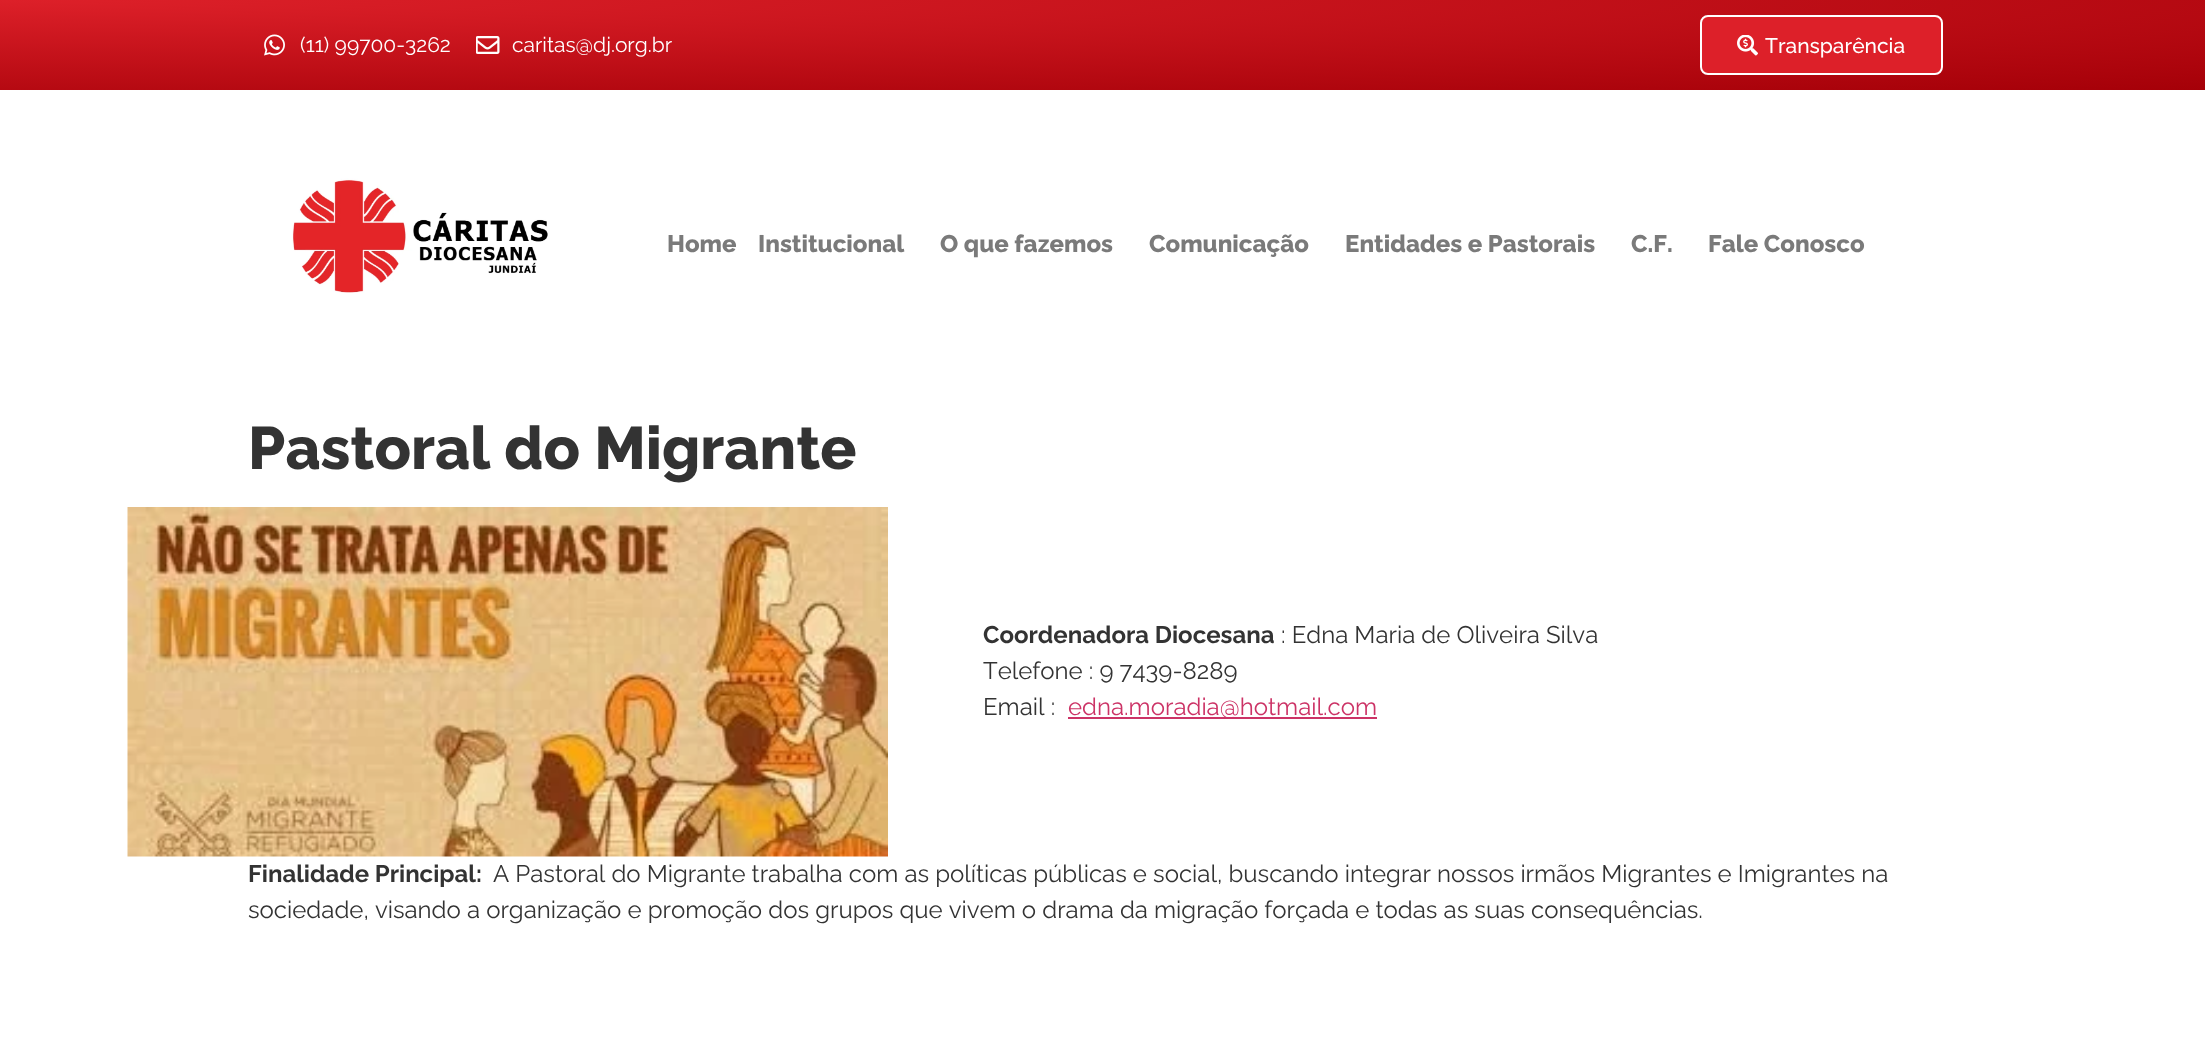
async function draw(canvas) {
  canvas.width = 2205
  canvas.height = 1053
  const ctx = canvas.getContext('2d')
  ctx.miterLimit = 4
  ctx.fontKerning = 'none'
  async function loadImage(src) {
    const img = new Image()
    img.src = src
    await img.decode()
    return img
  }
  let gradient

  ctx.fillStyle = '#fff'
  ctx.fillRect(0, 0, 2205, 1053)
  gradient = ctx.createRadialGradient(0, 0, 0, 0, 0, 3118)
  gradient.addColorStop(0, '#dd2029')
  gradient.addColorStop(1, '#a50008')
  ctx.fillStyle = gradient
  ctx.beginPath()
  ctx.rect(0, 0, 2205, 90)
  ctx.save()
  ctx.clip()
  ctx.scale(1, 127 / 3118)
  ctx.fillRect(0, 0, 2205, 25853)
  ctx.restore()
  ctx.drawImage(await loadImage('image0.png'), 264, 34, 21, 22)
  ctx.font = '21px Raleway'
  ctx.fillStyle = '#fff'
  ctx.fillText('(11) 99700-3262', 300, 52)
  ctx.drawImage(await loadImage('image1.png'), 476, 36, 24, 18)
  ctx.fillText('caritas@dj.org.br', 512, 52)
  ctx.fillStyle = '#dd2029'
  ctx.beginPath()
  ctx.roundRect(1701, 16, 241, 58, 7)
  ctx.fill()
  ctx.strokeStyle = '#fff'
  ctx.lineWidth = 2
  ctx.stroke()
  ctx.drawImage(await loadImage('image2.png'), 1737, 35, 21, 21)
  ctx.font = '500 21px Raleway'
  ctx.fillStyle = '#fff'
  ctx.fillText('Transparência', 1765, 53)
  ctx.drawImage(await loadImage('image3.png'), 292, 178, 256, 115)
  ctx.font = '800 24px Raleway'
  ctx.fillStyle = '#7a7a7a'
  ctx.fillText('Home', 667, 252)
  ctx.fillText('Institucional', 758, 252)
  ctx.fillText('O que fazemos', 940, 252)
  ctx.fillText('Comunicação', 1149, 252)
  ctx.fillText('Entidades e Pastorais', 1345, 252)
  ctx.fillText('C.F.', 1631, 252)
  ctx.fillText('Fale Conosco', 1708, 252)
  ctx.font = '800 60px Raleway'
  ctx.fillStyle = '#333'
  ctx.fillText('Pastoral do Migrante', 248, 469)
  ctx.drawImage(await loadImage('image4.png'), 127, 507, 761, 350)
  ctx.font = 'bold 24px Raleway'
  ctx.fillText('Coordenadora Diocesana', 983, 643)
  ctx.font = '24px Raleway'
  ctx.fillText(': Edna Maria de Oliveira Silva', 1281, 643)
  ctx.fillText('Telefone : 9 7439-8289', 983, 679)
  ctx.fillText('Email :', 983, 715)
  ctx.fillStyle = '#c36'
  ctx.fillRect(1068, 717, 309, 2)
  ctx.fillText('edna.moradia@hotmail.com', 1068, 715)
  ctx.font = 'bold 24px Raleway'
  ctx.fillStyle = '#333'
  ctx.fillText('Finalidade Principal:', 248, 882)
  ctx.font = '24px Raleway'
  ctx.fillText('A Pastoral do Migrante trabalha com as políticas públicas e social, buscando integrar nossos irmãos Migrantes e Imigrantes na', 493, 882)
  ctx.fillText('sociedade, visando a organização e promoção dos grupos que vivem o drama da migração forçada e todas as suas consequências.', 248, 918)
}

draw(document.querySelector('canvas'))
